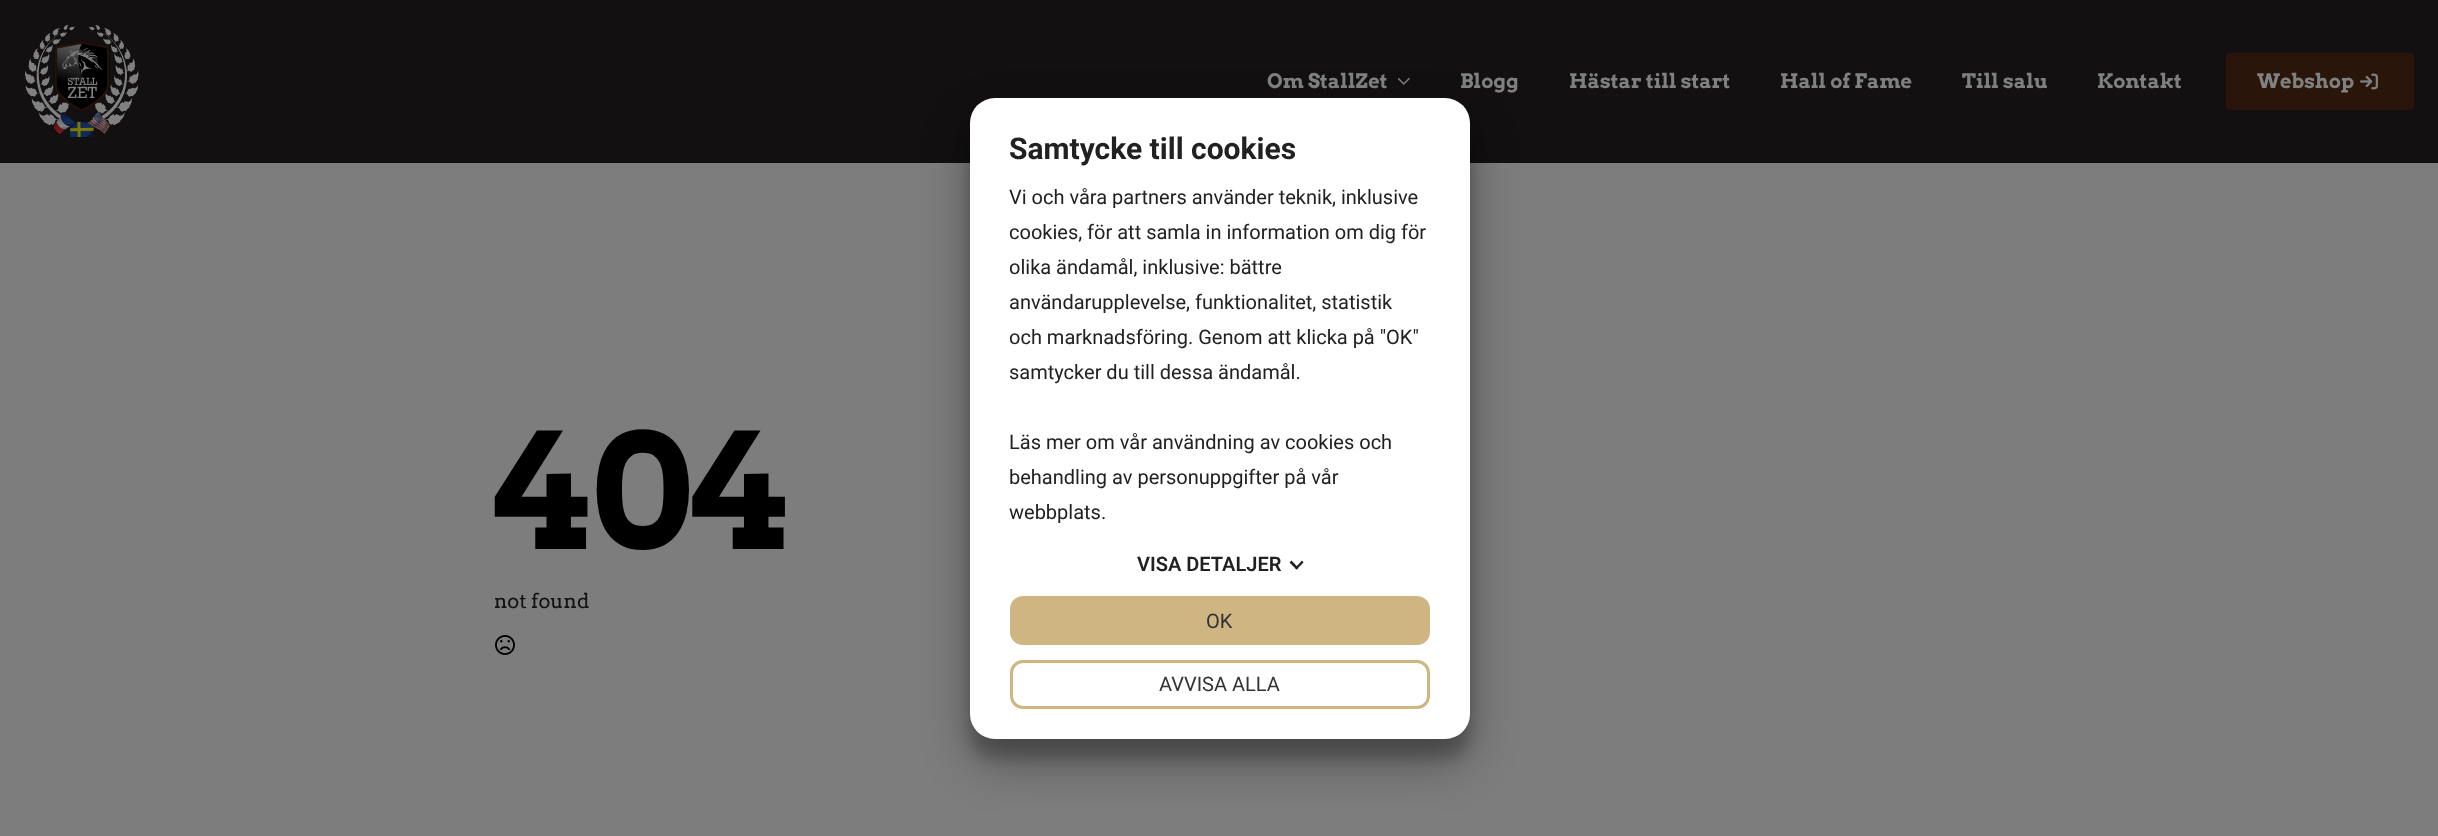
async function draw(canvas) {
  canvas.width = 2438
  canvas.height = 836
  const ctx = canvas.getContext('2d')
  ctx.miterLimit = 4
  ctx.fontKerning = 'normal'
  async function loadImage(src) {
    const img = new Image()
    img.src = src
    await img.decode()
    return img
  }

  ctx.fillStyle = '#7d7d7e'
  ctx.fillRect(0, 0, 2438, 836)
  ctx.fillStyle = '#121010'
  ctx.fillRect(0, 0, 2438, 163)
  ctx.drawImage(await loadImage('image0.png'), 25, 25, 114, 113)
  ctx.font = 'bold 20px Arvo'
  ctx.fillStyle = '#808080'
  ctx.fillText('Om StallZet', 1267, 88)
  ctx.drawImage(await loadImage('image1.png'), 1398, 77, 12, 8)
  ctx.fillText('Blogg', 1460, 88)
  ctx.fillText('Hästar till start', 1569, 88)
  ctx.fillText('Hall of Fame', 1780, 88)
  ctx.fillText('Till salu', 1962, 88)
  ctx.fillText('Kontakt', 2097, 88)
  ctx.fillStyle = '#291509'
  ctx.beginPath()
  ctx.roundRect(2226, 53, 188, 57, 4)
  ctx.fill()
  ctx.fillStyle = '#808080'
  ctx.fillText('Webshop', 2257, 88)
  ctx.drawImage(await loadImage('image2.png'), 2360, 73, 18, 17)
  ctx.font = 'bold 160px Arvo'
  ctx.fillStyle = '#000'
  ctx.fillText('404', 494, 549)
  ctx.font = '20px Arvo'
  ctx.fillStyle = '#121010'
  ctx.fillText('not found', 494, 608)
  ctx.drawImage(await loadImage('image3.png'), 495, 635, 20, 20)
  ctx.fillStyle = '#00000038'
  ctx.filter = 'blur(7.5px)'
  ctx.beginPath()
  ctx.roundRect(970, 116, 500, 642, 25)
  ctx.fill()
  ctx.filter = 'none'
  ctx.fillStyle = '#0000004d'
  ctx.filter = 'blur(24px)'
  ctx.beginPath()
  ctx.roundRect(970, 121, 500, 642, 25)
  ctx.fill()
  ctx.filter = 'none'
  ctx.fillStyle = '#fff'
  ctx.beginPath()
  ctx.roundRect(970, 98, 500, 641, 25)
  ctx.fill()
  ctx.font = 'bold 30px Roboto'
  ctx.fillStyle = '#212121'
  ctx.fillText('Samtycke till cookies', 1009, 159)
  ctx.font = '20px Roboto'
  ctx.fillText('Vi och våra partners använder teknik, inklusive', 1009, 204)
  ctx.fillText('cookies, för att samla in information om dig för', 1009, 239)
  ctx.fillText('olika ändamål, inklusive: bättre', 1009, 274)
  ctx.fillText('användarupplevelse, funktionalitet, statistik', 1009, 309)
  ctx.fillText('och marknadsföring. Genom att klicka på "OK"', 1009, 344)
  ctx.fillText('samtycker du till dessa ändamål.', 1009, 379)
  ctx.fillText('Läs mer om vår användning av cookies och', 1009, 449)
  ctx.fillText('behandling av personuppgifter på vår', 1009, 484)
  ctx.fillText('webbplats.', 1009, 519)
  ctx.font = '600 20px Roboto'
  ctx.fillText('VISA DETALJER', 1137, 571)
  ctx.beginPath()
  ctx.moveTo(1302, 560.5)
  ctx.lineTo(1303.5, 562.5)
  ctx.lineTo(1296.5, 569.5)
  ctx.lineTo(1295, 568)
  ctx.closePath()
  ctx.fill()
  ctx.beginPath()
  ctx.moveTo(1291.5, 560.5)
  ctx.lineTo(1298.5, 568)
  ctx.lineTo(1296.5, 569.5)
  ctx.lineTo(1289.5, 562.5)
  ctx.closePath()
  ctx.fill()
  ctx.fillStyle = '#ceb582'
  ctx.beginPath()
  ctx.roundRect(1011.5, 597.5, 417, 46, 11.5)
  ctx.fill()
  ctx.strokeStyle = '#ceb582'
  ctx.lineWidth = 3
  ctx.stroke()
  ctx.font = '20px Roboto'
  ctx.fillStyle = '#333'
  ctx.fillText('OK', 1206, 628)
  ctx.beginPath()
  ctx.roundRect(1011.5, 661.5, 417, 46, 11.5)
  ctx.stroke()
  ctx.fillText('AVVISA ALLA', 1159, 691)
}

draw(document.querySelector('canvas'))
